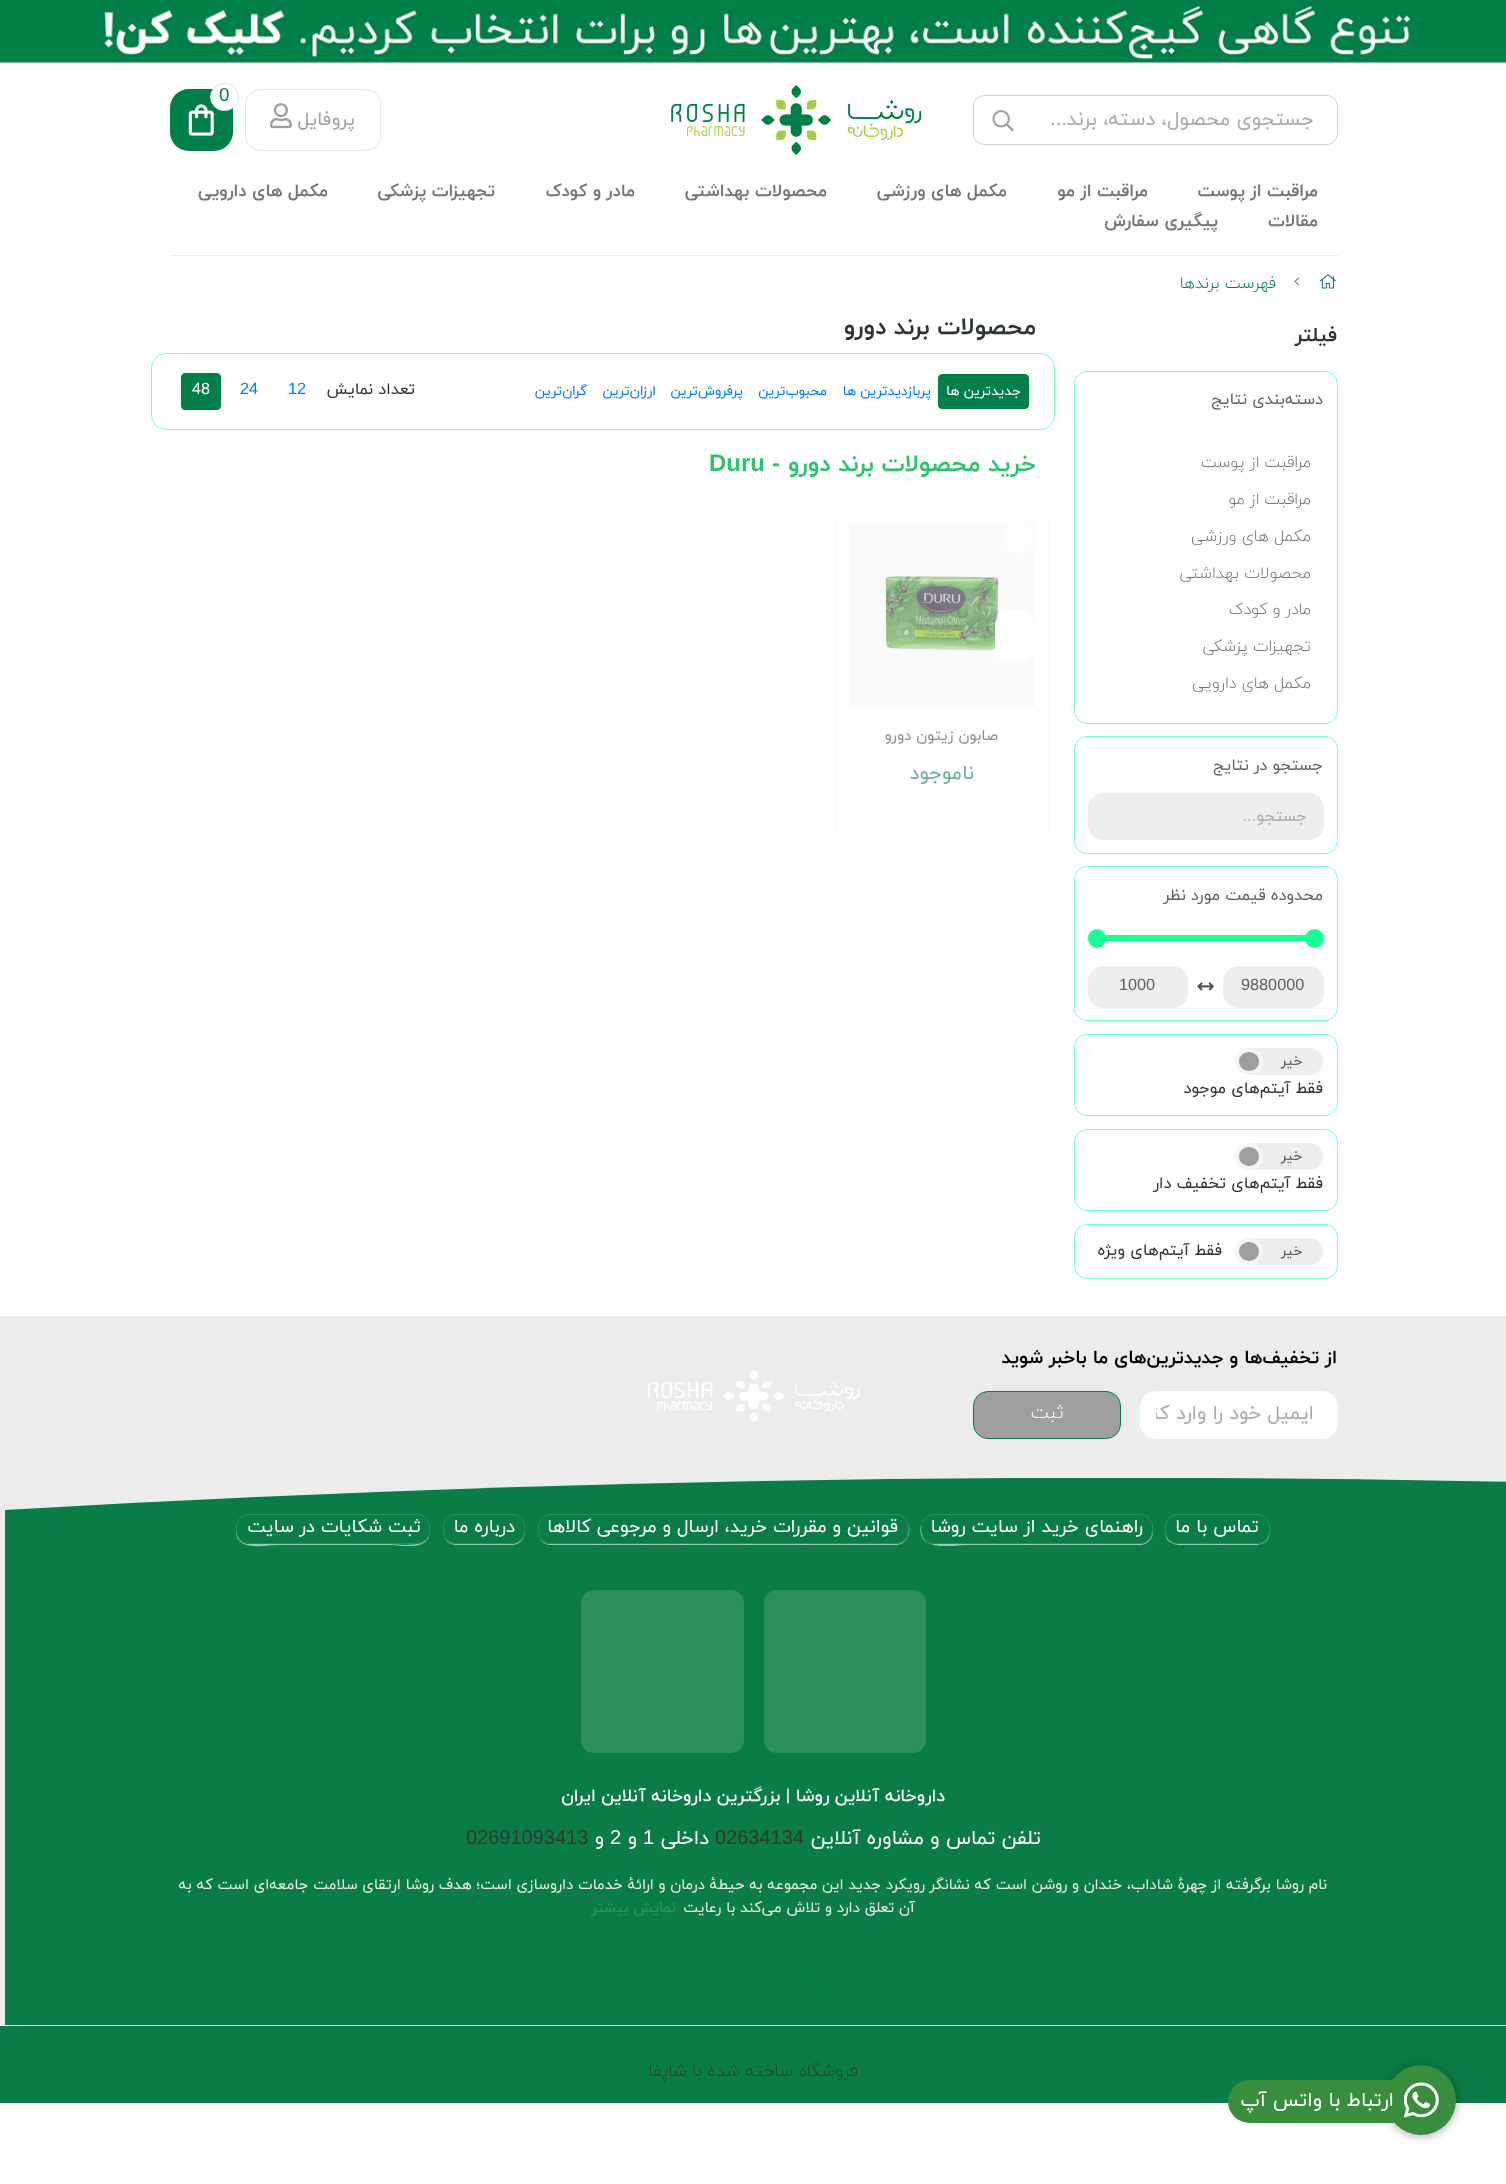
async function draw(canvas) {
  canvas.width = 1506
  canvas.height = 2184
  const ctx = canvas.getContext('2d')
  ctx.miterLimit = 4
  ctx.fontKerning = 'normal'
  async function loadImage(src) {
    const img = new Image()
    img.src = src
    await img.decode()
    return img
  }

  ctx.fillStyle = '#fff'
  ctx.fillRect(0, 0, 1506, 2184)
  ctx.drawImage(await loadImage('image0.png'), 0, 0, 1506, 63)
  ctx.beginPath()
  ctx.roundRect(973.5, 95.5, 364, 49, 10.5)
  ctx.strokeStyle = '#d0d0d0'
  ctx.stroke()
  ctx.direction = 'rtl'
  ctx.font = '20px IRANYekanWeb'
  ctx.fillStyle = '#aaa'
  ctx.fillText('جستجوی محصول، دسته، برند', 1314, 125)
  ctx.font = '20px Liberation Sans'
  ctx.fillText('...', 1067, 125)
  ctx.drawImage(await loadImage('image1.png'), 992, 110, 22, 22)
  ctx.drawImage(await loadImage('image2.png'), 671, 85, 250, 70)
  ctx.fillStyle = '#007f46'
  ctx.beginPath()
  ctx.roundRect(170, 89, 63, 62, 19)
  ctx.fill()
  ctx.drawImage(await loadImage('image3.png'), 188, 104, 26, 32)
  ctx.fillStyle = '#fff'
  ctx.beginPath()
  ctx.roundRect(210.5, 83.5, 28, 27, 13.5)
  ctx.fill()
  ctx.strokeStyle = '#e2e2e2'
  ctx.stroke()
  ctx.direction = 'ltr'
  ctx.font = '18.75px Liberation Sans'
  ctx.fillStyle = '#007f46'
  ctx.fillText('0', 219, 101)
  ctx.beginPath()
  ctx.roundRect(245.5, 89.5, 135, 61, 14.5)
  ctx.strokeStyle = '#e7e7e7'
  ctx.stroke()
  ctx.direction = 'rtl'
  ctx.font = '18.75px IRANYekanWeb'
  ctx.fillStyle = '#9e9e9e'
  ctx.fillText('پروفایل', 355, 125)
  ctx.drawImage(await loadImage('image4.png'), 270, 103, 22, 26)
  ctx.font = 'bold 17.5px IRANYekanWeb'
  ctx.fillStyle = '#757575'
  ctx.fillText('مراقبت از پوست', 1318, 196)
  ctx.fillText('مراقبت از مو', 1148, 196)
  ctx.fillText('مکمل های ورزشی', 1007, 196)
  ctx.fillText('محصولات بهداشتی', 827, 196)
  ctx.fillText('مادر و کودک', 635, 196)
  ctx.fillText('تجهیزات پزشکی', 495, 196)
  ctx.fillText('مکمل های دارویی', 328, 196)
  ctx.fillText('مقالات', 1318, 226)
  ctx.fillText('پیگیری سفارش', 1218, 226)
  ctx.fillStyle = '#f0ecec'
  ctx.fillRect(170, 255, 1168, 1)
  ctx.drawImage(await loadImage('image5.png'), 1319, 274, 17, 15)
  ctx.drawImage(await loadImage('image6.png'), 1294, 277, 6, 9)
  ctx.font = '300 16.25px IRANYekanWeb'
  ctx.fillStyle = '#007f46'
  ctx.fillText('فهرست برندها', 1276, 288)
  ctx.font = 'bold 20px IRANYekanWeb'
  ctx.fillStyle = '#2d3436'
  ctx.fillText('فیلتر', 1337, 341)
  ctx.beginPath()
  ctx.roundRect(1074.5, 371.5, 263, 352, 12.5)
  ctx.strokeStyle = '#7affc3'
  ctx.stroke()
  ctx.font = '16.25px IRANYekanWeb'
  ctx.fillStyle = '#616161'
  ctx.fillText('دسته‌بندی نتایج', 1323, 404)
  ctx.font = '300 16.25px IRANYekanWeb'
  ctx.fillStyle = '#757575'
  ctx.fillText('مراقبت از پوست', 1311, 467)
  ctx.fillText('مراقبت از مو', 1311, 504)
  ctx.fillText('مکمل های ورزشی', 1311, 541)
  ctx.fillText('محصولات بهداشتی', 1311, 578)
  ctx.fillText('مادر و کودک', 1311, 614)
  ctx.fillText('تجهیزات پزشکی', 1311, 651)
  ctx.fillText('مکمل های دارویی', 1311, 688)
  ctx.beginPath()
  ctx.roundRect(1074.5, 736.5, 263, 117, 12.5)
  ctx.stroke()
  ctx.font = '16.25px IRANYekanWeb'
  ctx.fillStyle = '#616161'
  ctx.fillText('جستجو در نتایج', 1323, 770)
  ctx.fillStyle = '#eee'
  ctx.beginPath()
  ctx.roundRect(1088.5, 793.5, 235, 46, 14.5)
  ctx.fill()
  ctx.strokeStyle = '#eee'
  ctx.stroke()
  ctx.fillStyle = '#aaa'
  ctx.fillText('جستجو', 1307, 821)
  ctx.font = '16.25px Liberation Sans'
  ctx.fillText('...', 1256, 821)
  ctx.beginPath()
  ctx.roundRect(1074.5, 866.5, 263, 154, 12.5)
  ctx.strokeStyle = '#7affc3'
  ctx.stroke()
  ctx.font = '16.25px IRANYekanWeb'
  ctx.fillStyle = '#616161'
  ctx.fillText('محدوده قیمت مورد نظر', 1323, 900)
  ctx.fillStyle = '#19ff98'
  ctx.fillRect(1100, 935, 206, 6)
  ctx.beginPath()
  ctx.arc(1314.5, 938.5, 9.5, 0, 2 * Math.PI)
  ctx.fill()
  ctx.beginPath()
  ctx.roundRect(1088, 929, 18, 19, 9)
  ctx.fill()
  ctx.fillStyle = '#eee'
  ctx.beginPath()
  ctx.roundRect(1223.5, 966.5, 100, 41, 14.5)
  ctx.fill()
  ctx.strokeStyle = '#eee'
  ctx.stroke()
  ctx.direction = 'ltr'
  ctx.font = '16.25px Liberation Sans'
  ctx.fillStyle = '#616161'
  ctx.fillText('9880000', 1241, 990)
  ctx.drawImage(await loadImage('image7.png'), 1197, 982, 17, 9)
  ctx.fillStyle = '#eee'
  ctx.beginPath()
  ctx.roundRect(1088.5, 966.5, 99, 41, 14.5)
  ctx.fill()
  ctx.stroke()
  ctx.fillStyle = '#616161'
  ctx.fillText('1000', 1119, 990)
  ctx.beginPath()
  ctx.roundRect(1074.5, 1034.5, 263, 81, 12.5)
  ctx.strokeStyle = '#7affc3'
  ctx.stroke()
  ctx.fillStyle = '#eee'
  ctx.beginPath()
  ctx.roundRect(1249, 1048, 74, 27, [0, 13.5, 13.5, 0])
  ctx.fill()
  ctx.direction = 'rtl'
  ctx.font = '500 13.75px IRANYekanWeb'
  ctx.fillStyle = '#616161'
  ctx.fillText('خیر', 1302, 1065)
  ctx.fillStyle = '#9e9e9e'
  ctx.beginPath()
  ctx.roundRect(1237, 1050, 24, 23, 11.5)
  ctx.fill()
  ctx.strokeStyle = '#f5f5f6'
  ctx.lineWidth = 4
  ctx.stroke()
  ctx.font = '16.25px IRANYekanWeb'
  ctx.fillStyle = '#2d3436'
  ctx.fillText('فقط آیتم‌های موجود', 1323, 1093)
  ctx.beginPath()
  ctx.roundRect(1074.5, 1129.5, 263, 81, 12.5)
  ctx.strokeStyle = '#7affc3'
  ctx.lineWidth = 1
  ctx.stroke()
  ctx.fillStyle = '#eee'
  ctx.beginPath()
  ctx.roundRect(1249, 1143, 74, 27, [0, 13.5, 13.5, 0])
  ctx.fill()
  ctx.font = '500 13.75px IRANYekanWeb'
  ctx.fillStyle = '#616161'
  ctx.fillText('خیر', 1302, 1160)
  ctx.fillStyle = '#9e9e9e'
  ctx.beginPath()
  ctx.roundRect(1237, 1145, 24, 23, 11.5)
  ctx.fill()
  ctx.strokeStyle = '#f5f5f6'
  ctx.lineWidth = 4
  ctx.stroke()
  ctx.font = '16.25px IRANYekanWeb'
  ctx.fillStyle = '#2d3436'
  ctx.fillText('فقط آیتم‌های تخفیف دار', 1323, 1188)
  ctx.beginPath()
  ctx.roundRect(1074.5, 1224.5, 263, 54, 12.5)
  ctx.strokeStyle = '#7affc3'
  ctx.lineWidth = 1
  ctx.stroke()
  ctx.fillStyle = '#eee'
  ctx.beginPath()
  ctx.roundRect(1249, 1238, 74, 27, [0, 13.5, 13.5, 0])
  ctx.fill()
  ctx.font = '500 13.75px IRANYekanWeb'
  ctx.fillStyle = '#616161'
  ctx.fillText('خیر', 1302, 1255)
  ctx.fillStyle = '#9e9e9e'
  ctx.beginPath()
  ctx.roundRect(1237, 1240, 24, 23, 11.5)
  ctx.fill()
  ctx.strokeStyle = '#f5f5f6'
  ctx.lineWidth = 4
  ctx.stroke()
  ctx.font = '16.25px IRANYekanWeb'
  ctx.fillStyle = '#2d3436'
  ctx.fillText('فقط آیتم‌های ویژه', 1222, 1255)
  ctx.font = 'bold 24px IRANYekanWeb'
  ctx.fillText('محصولات برند دورو', 1036, 334)
  ctx.beginPath()
  ctx.roundRect(151.5, 353.5, 903, 76, 14.5)
  ctx.strokeStyle = '#7affc3'
  ctx.lineWidth = 1
  ctx.stroke()
  ctx.fillStyle = '#007f46'
  ctx.beginPath()
  ctx.roundRect(938.5, 374.5, 90, 34, 3.5)
  ctx.fill()
  ctx.strokeStyle = '#007f46'
  ctx.stroke()
  ctx.font = '13.75px IRANYekanWeb'
  ctx.fillStyle = '#fff'
  ctx.fillText('جدیدترین ها', 1021, 395)
  ctx.fillStyle = '#007bff'
  ctx.fillText('پربازدیدترین ها', 931, 395)
  ctx.fillText('محبوب‌‌ترین', 827, 395)
  ctx.fillText('پرفروش‌ترین', 743, 395)
  ctx.fillText('ارزان‌ترین', 656, 395)
  ctx.fillText('گران‌ترین', 587, 395)
  ctx.font = '16.25px IRANYekanWeb'
  ctx.fillStyle = '#2d3436'
  ctx.fillText('تعداد نمایش', 415, 394)
  ctx.direction = 'ltr'
  ctx.font = '16.25px Liberation Sans'
  ctx.fillStyle = '#007bff'
  ctx.fillText('12', 288, 394)
  ctx.fillText('24', 240, 394)
  ctx.fillStyle = '#007f46'
  ctx.beginPath()
  ctx.roundRect(181.5, 373.5, 39, 36, 3.5)
  ctx.fill()
  ctx.stroke()
  ctx.fillStyle = '#fff'
  ctx.fillText('48', 192, 394)
  ctx.direction = 'rtl'
  ctx.font = 'bold 24px IRANYekanWeb'
  ctx.fillStyle = '#2dc26b'
  ctx.fillText('خرید محصولات برند دورو', 1036, 471)
  ctx.font = 'bold 24px Liberation Sans'
  ctx.fillText('-', 780, 471)
  ctx.direction = 'ltr'
  ctx.fillText('Duru', 709, 471)
  ctx.beginPath()
  ctx.roundRect(835.5, 508.5, 213, 336, 14.5)
  ctx.strokeStyle = '#fafafa'
  ctx.stroke()
  ctx.drawImage(await loadImage('image8.png'), 849, 521, 186, 186)
  ctx.fillStyle = '#fdfdfd'
  ctx.beginPath()
  ctx.roundRect(1004, 521, 31, 32, 15.5)
  ctx.fill()
  ctx.fillStyle = '#fff'
  ctx.beginPath()
  ctx.roundRect(995.5, 610.5, 39, 52, 14.5)
  ctx.fill()
  ctx.strokeStyle = '#fff'
  ctx.stroke()
  ctx.direction = 'rtl'
  ctx.font = '15px IRANYekanWeb'
  ctx.fillStyle = '#8e8e8e'
  ctx.fillText('صابون زیتون دورو', 998, 740)
  ctx.font = '20px IRANYekanWeb'
  ctx.fillStyle = '#66b290'
  ctx.fillText('ناموجود', 974, 779)
  ctx.fillStyle = '#ececec'
  ctx.fillRect(0, 1316, 1506, 709)
  ctx.font = 'bold 18.75px IRANYekanWeb'
  ctx.fillStyle = '#000'
  ctx.fillText('از تخفیف‌ها و جدیدترین‌های ما باخبر شوید', 1337, 1363)
  ctx.fillStyle = '#fff'
  ctx.beginPath()
  ctx.roundRect(1140.5, 1391.5, 197, 47, 14.5)
  ctx.fill()
  ctx.stroke()
  ctx.save()
  ctx.beginPath()
  ctx.rect(1156, 1401, 165, 28)
  ctx.clip()
  ctx.font = '20px IRANYekanWeb'
  ctx.fillStyle = '#aaa'
  ctx.fillText('ایمیل خود را وارد کنید', 1314, 1419)
  ctx.restore()
  ctx.fillStyle = '#9f9f9f'
  ctx.beginPath()
  ctx.roundRect(973.5, 1391.5, 147, 47, 14.5)
  ctx.fill()
  ctx.strokeStyle = '#007f46'
  ctx.stroke()
  ctx.font = '300 18.75px IRANYekanWeb'
  ctx.fillStyle = '#fff'
  ctx.fillText('ثبت', 1064, 1418)
  ctx.drawImage(await loadImage('image9.png'), 648, 1370, 212, 53)
  ctx.save()
  ctx.beginPath()
  ctx.rect(0, 1478, 1506, 547)
  ctx.clip()
  ctx.fillStyle = '#0a7d46'
  ctx.beginPath()
  ctx.moveTo(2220, 2026)
  ctx.lineTo(5, 2026)
  ctx.lineTo(5, 1510)
  ctx.bezierCurveTo(742, 1467, 1482, 1467, 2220, 1510)
  ctx.closePath()
  ctx.fill()
  ctx.restore()
  ctx.fillStyle = '#9bcab3'
  ctx.beginPath()
  ctx.moveTo(1165, 1531)
  ctx.bezierCurveTo(1165, 1547, 1180, 1545, 1191, 1545)
  ctx.lineTo(1244, 1545)
  ctx.bezierCurveTo(1255, 1545, 1270, 1547, 1270, 1531)
  ctx.bezierCurveTo(1270, 1538, 1264, 1544, 1258, 1544)
  ctx.lineTo(1178, 1544)
  ctx.bezierCurveTo(1171, 1544, 1165, 1538, 1165, 1531)
  ctx.closePath()
  ctx.fill()
  ctx.beginPath()
  ctx.roundRect(1165.5, 1514.5, 104, 29, 12.5)
  ctx.strokeStyle = '#2d8f60'
  ctx.stroke()
  ctx.font = '18.5px IRANYekanWeb'
  ctx.fillStyle = '#fff'
  ctx.fillText('تماس با ما', 1259, 1532)
  ctx.fillStyle = '#9bcab3'
  ctx.beginPath()
  ctx.moveTo(921, 1525)
  ctx.bezierCurveTo(915, 1553, 954, 1545, 968, 1545)
  ctx.lineTo(1140, 1545)
  ctx.bezierCurveTo(1147, 1545, 1153, 1539, 1153, 1532)
  ctx.bezierCurveTo(1153, 1529, 1153, 1526, 1152, 1523)
  ctx.lineTo(1152, 1530)
  ctx.bezierCurveTo(1152, 1537, 1148, 1544, 1140, 1544)
  ctx.lineTo(934, 1544)
  ctx.bezierCurveTo(923, 1544, 921, 1534, 921, 1525)
  ctx.closePath()
  ctx.fill()
  ctx.beginPath()
  ctx.roundRect(921.5, 1514.5, 231, 29, 12.5)
  ctx.stroke()
  ctx.fillStyle = '#fff'
  ctx.fillText('راهنمای خرید از سایت روشا', 1143, 1532)
  ctx.fillStyle = '#9bcab3'
  ctx.beginPath()
  ctx.moveTo(539, 1538)
  ctx.bezierCurveTo(541, 1542, 545, 1544, 549, 1545)
  ctx.lineTo(896, 1545)
  ctx.bezierCurveTo(906, 1545, 911, 1534, 909, 1525)
  ctx.bezierCurveTo(909, 1534, 907, 1544, 896, 1544)
  ctx.lineTo(550, 1544)
  ctx.bezierCurveTo(546, 1544, 542, 1542, 539, 1538)
  ctx.closePath()
  ctx.fill()
  ctx.beginPath()
  ctx.roundRect(538.5, 1514.5, 370, 29, 12.5)
  ctx.stroke()
  ctx.fillStyle = '#fff'
  ctx.fillText('قوانین و مقررات خرید، ارسال و مرجوعی کالاها', 898, 1532)
  ctx.fillStyle = '#9bcab3'
  ctx.beginPath()
  ctx.moveTo(444, 1538)
  ctx.bezierCurveTo(447, 1542, 451, 1545, 456, 1545)
  ctx.lineTo(512, 1545)
  ctx.bezierCurveTo(519, 1545, 525, 1539, 525, 1532)
  ctx.lineTo(525, 1531)
  ctx.bezierCurveTo(525, 1538, 519, 1544, 512, 1544)
  ctx.lineTo(455, 1544)
  ctx.bezierCurveTo(451, 1544, 447, 1541, 444, 1538)
  ctx.closePath()
  ctx.fill()
  ctx.beginPath()
  ctx.roundRect(443.5, 1514.5, 81, 29, 12.5)
  ctx.stroke()
  ctx.fillStyle = '#fff'
  ctx.fillText('درباره ما', 515, 1532)
  ctx.fillStyle = '#9bcab3'
  ctx.beginPath()
  ctx.moveTo(236, 1525)
  ctx.lineTo(236, 1532)
  ctx.bezierCurveTo(237, 1552, 266, 1545, 277, 1545)
  ctx.lineTo(389, 1545)
  ctx.bezierCurveTo(400, 1545, 430, 1552, 430, 1531)
  ctx.bezierCurveTo(430, 1550, 397, 1544, 389, 1544)
  ctx.lineTo(249, 1544)
  ctx.bezierCurveTo(238, 1544, 236, 1534, 236, 1525)
  ctx.closePath()
  ctx.fill()
  ctx.beginPath()
  ctx.roundRect(236.5, 1514.5, 193, 29, 12.5)
  ctx.stroke()
  ctx.fillStyle = '#fff'
  ctx.fillText('ثبت شکایات در سایت', 421, 1532)
  ctx.fillStyle = '#2c8f60'
  ctx.beginPath()
  ctx.roundRect(764, 1590, 162, 163, 13)
  ctx.fill()
  ctx.beginPath()
  ctx.roundRect(581, 1590, 163, 163, 13)
  ctx.fill()
  ctx.font = '500 17.5px IRANYekanWeb'
  ctx.fillStyle = '#fff'
  ctx.fillText('داروخانه آنلاین روشا | بزرگترین داروخانه آنلاین ایران', 945, 1801)
  ctx.font = '20px IRANYekanWeb'
  ctx.fillText('تلفن تماس و مشاوره آنلاین', 1041, 1844)
  ctx.direction = 'ltr'
  ctx.font = '20px Liberation Sans'
  ctx.fillStyle = '#333'
  ctx.fillText('02634134', 715, 1844)
  ctx.direction = 'rtl'
  ctx.font = '20px IRANYekanWeb'
  ctx.fillStyle = '#fff'
  ctx.fillText('داخلی', 709, 1844)
  ctx.direction = 'ltr'
  ctx.font = '20px Liberation Sans'
  ctx.fillText('1', 643, 1844)
  ctx.direction = 'rtl'
  ctx.font = '20px IRANYekanWeb'
  ctx.fillText('و', 637, 1844)
  ctx.direction = 'ltr'
  ctx.font = '20px Liberation Sans'
  ctx.fillText('2', 610, 1844)
  ctx.direction = 'rtl'
  ctx.font = '20px IRANYekanWeb'
  ctx.fillText('و', 604, 1844)
  ctx.direction = 'ltr'
  ctx.font = '20px Liberation Sans'
  ctx.fillStyle = '#333'
  ctx.fillText('02691093413', 466, 1844)
  ctx.direction = 'rtl'
  ctx.font = '15px IRANYekanWeb'
  ctx.fillStyle = '#ececec'
  ctx.fillText('نام روشا برگرفته از چهرۀ شاداب، خندان و روشن است که نشانگر رویکرد جدید این مجموعه به حیطۀ درمان و ارائۀ خدمات داروسازی است؛ هدف روشا ارتقای سلامت جامعه‌ای است که به', 1327, 1889)
  ctx.fillText('آن تعلق دارد و تلاش می‌کند با رعایت', 915, 1912)
  ctx.fillStyle = '#369467'
  ctx.fillText('نمایش بیشتر', 676, 1912)
  ctx.drawImage(await loadImage('image10.png'), 808, 1973, 18, 18)
  ctx.fillStyle = '#0a7d46'
  ctx.fillRect(0, 2026, 1506, 77)
  ctx.font = '300 17.5px IRANYekanWeb'
  ctx.fillStyle = '#284036'
  ctx.fillText('فروشگاه ساخته شده با شاپفا', 858, 2076)
  ctx.fillStyle = '#00000026'
  ctx.filter = 'blur(6px)'
  ctx.beginPath()
  ctx.roundRect(1386, 2066, 70, 70, 35)
  ctx.fill()
  ctx.filter = 'none'
  ctx.fillStyle = '#00000033'
  ctx.filter = 'blur(4px)'
  ctx.beginPath()
  ctx.roundRect(1386, 2066, 70, 70, 35)
  ctx.fill()
  ctx.filter = 'none'
  ctx.fillStyle = '#388e3c'
  ctx.beginPath()
  ctx.arc(1421, 2100, 35, 0, 2 * Math.PI)
  ctx.fill()
  ctx.drawImage(await loadImage('image11.png'), 1403, 2082, 36, 36)
  ctx.beginPath()
  ctx.roundRect(1228, 2080, 166, 43, [21.5, 0, 0, 21.5])
  ctx.fill()
  ctx.font = '20px IRANYekanWeb'
  ctx.fillStyle = '#fff'
  ctx.fillText('ارتباط با', 1394, 2106)
  ctx.fillText('واتس آپ', 1322, 2106)
}

draw(document.querySelector('canvas'))
